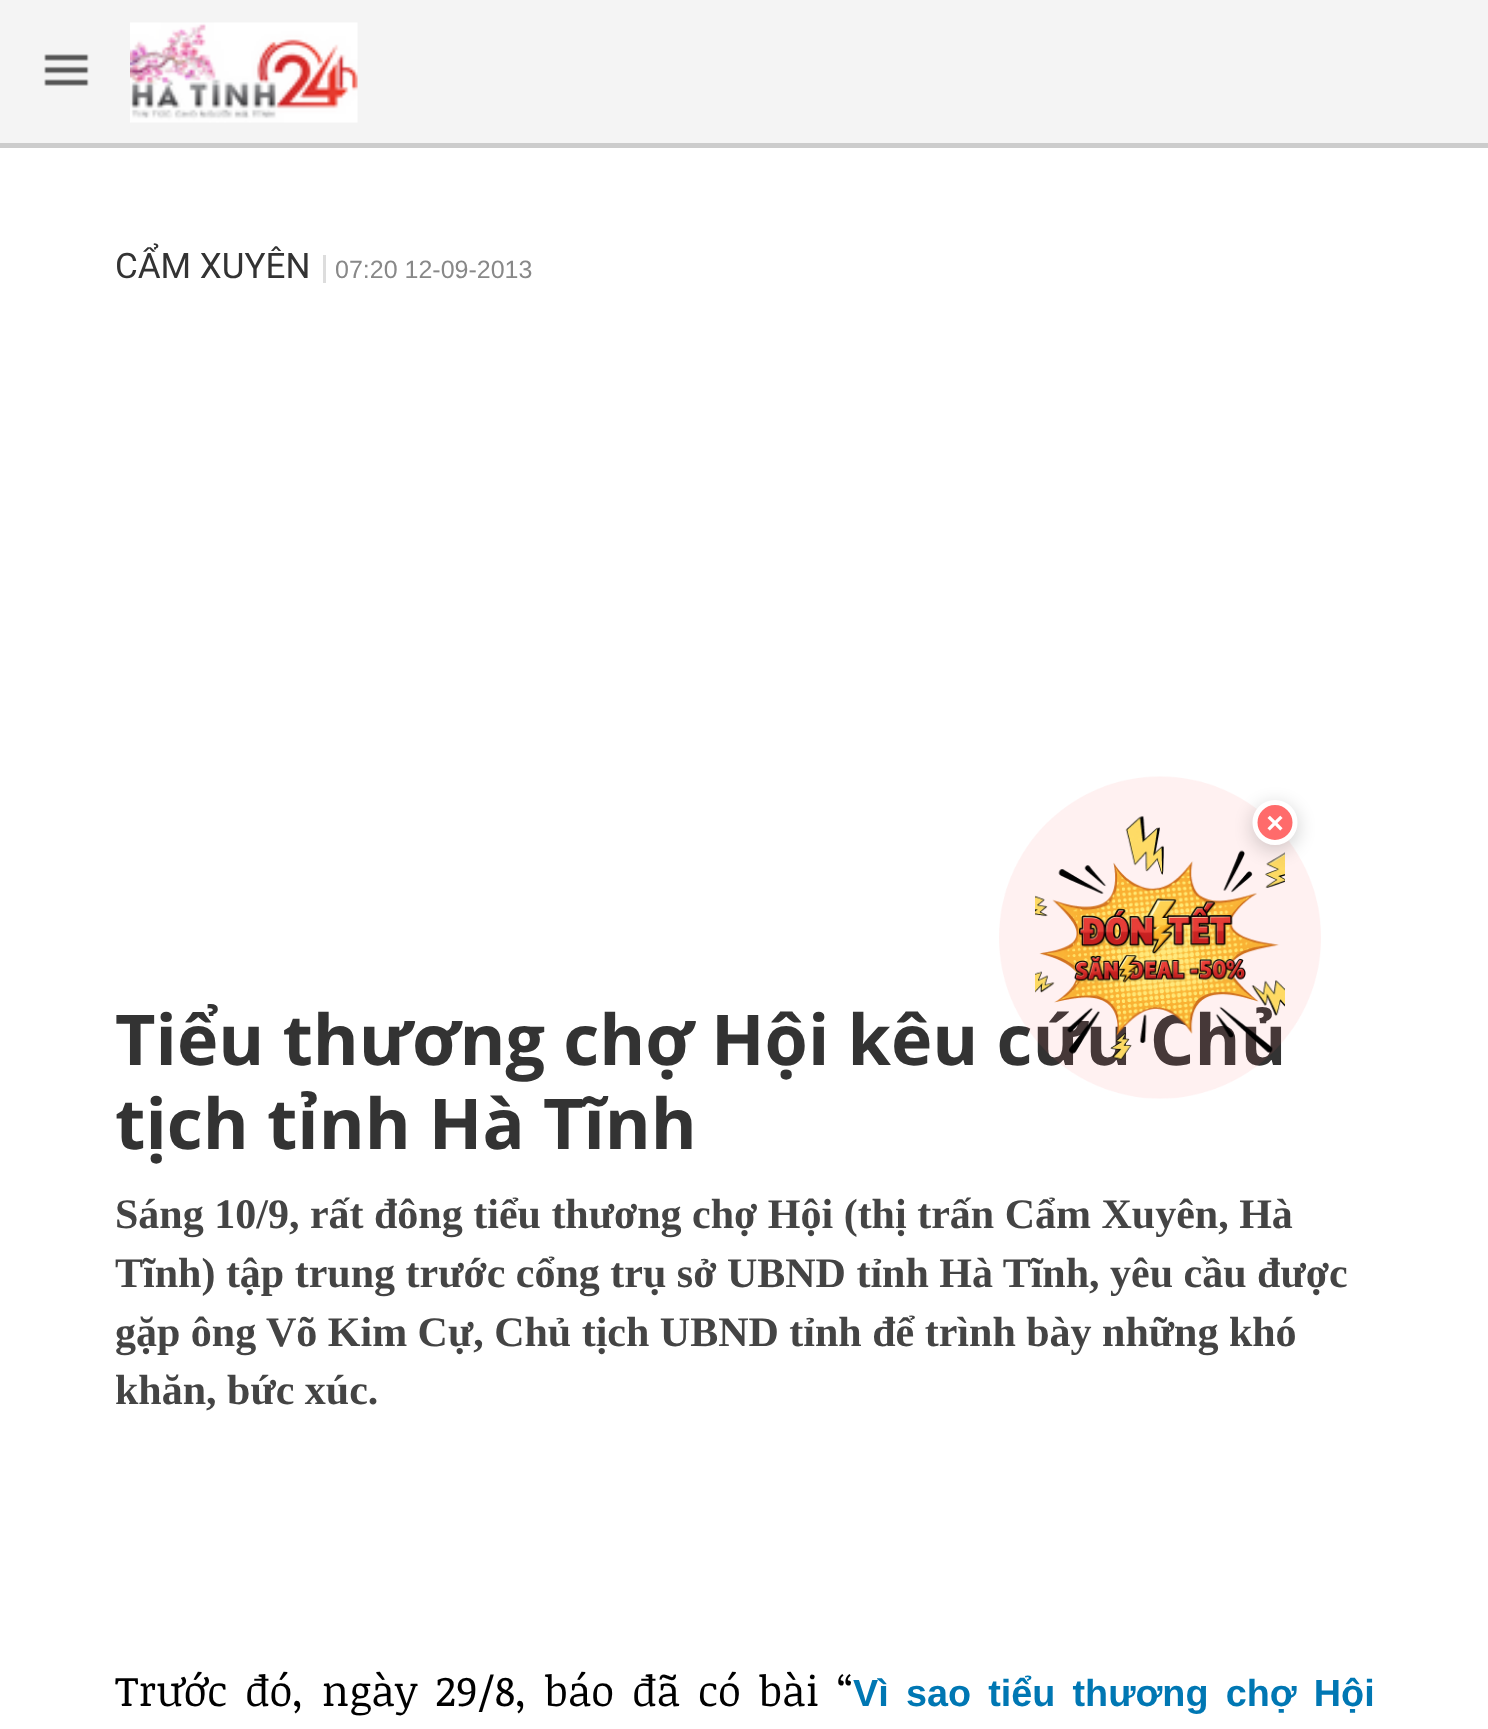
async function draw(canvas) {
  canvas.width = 1488
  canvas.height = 1729
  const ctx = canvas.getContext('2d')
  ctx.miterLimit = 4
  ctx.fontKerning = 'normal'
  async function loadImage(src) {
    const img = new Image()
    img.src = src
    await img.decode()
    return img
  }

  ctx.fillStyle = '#fff'
  ctx.fillRect(0, 0, 1488, 1729)
  ctx.fillStyle = '#f4f4f4'
  ctx.fillRect(0, 0, 1488, 143)
  ctx.fillStyle = '#ccc'
  ctx.fillRect(0, 143, 1488, 5)
  ctx.drawImage(await loadImage('image0.png'), 44, 54, 45, 32)
  ctx.drawImage(await loadImage('image1.png'), 130, 22, 228, 101)
  ctx.font = '35px Roboto'
  ctx.fillStyle = '#333'
  ctx.fillText('CẨM XUYÊN', 115, 278)
  ctx.font = '25px Liberation Sans'
  ctx.fillStyle = '#888'
  ctx.fillText('07:20 12-09-2013', 335, 278)
  ctx.fillStyle = '#ddd'
  ctx.fillRect(323, 255, 3, 28)
  ctx.font = 'bold 70px Open Sans'
  ctx.fillStyle = '#333'
  ctx.fillText('Tiểu thương chợ Hội kêu cứu Chủ', 115, 1065)
  ctx.fillText('tịch tỉnh Hà Tĩnh', 115, 1149)
  ctx.font = 'bold 42px Liberation Serif'
  ctx.fillStyle = '#444'
  ctx.fillText('Sáng 10/9, rất đông tiểu thương chợ Hội (thị trấn Cẩm Xuyên, Hà', 115, 1228)
  ctx.fillText('Tĩnh) tập trung trước cổng trụ sở UBND tỉnh Hà Tĩnh, yêu cầu được', 115, 1287)
  ctx.fillText('gặp ông Võ Kim Cự, Chủ tịch UBND tỉnh để trình bày những khó', 115, 1346)
  ctx.fillText('khăn, bức xúc.', 115, 1404)
  ctx.wordSpacing = '6.75px'
  ctx.font = '42px Noticia Text'
  ctx.fillStyle = '#000'
  ctx.fillText('Trước đó, ngày 29/8, báo đã có bài “', 115, 1706)
  ctx.font = 'bold 37.75px Liberation Sans'
  ctx.fillStyle = '#0077b3'
  ctx.fillText('Vì sao tiểu thương chợ Hội', 853, 1706)
  ctx.drawImage(await loadImage('image2.png'), 999, 776, 322, 323)
}

draw(document.querySelector('canvas'))
